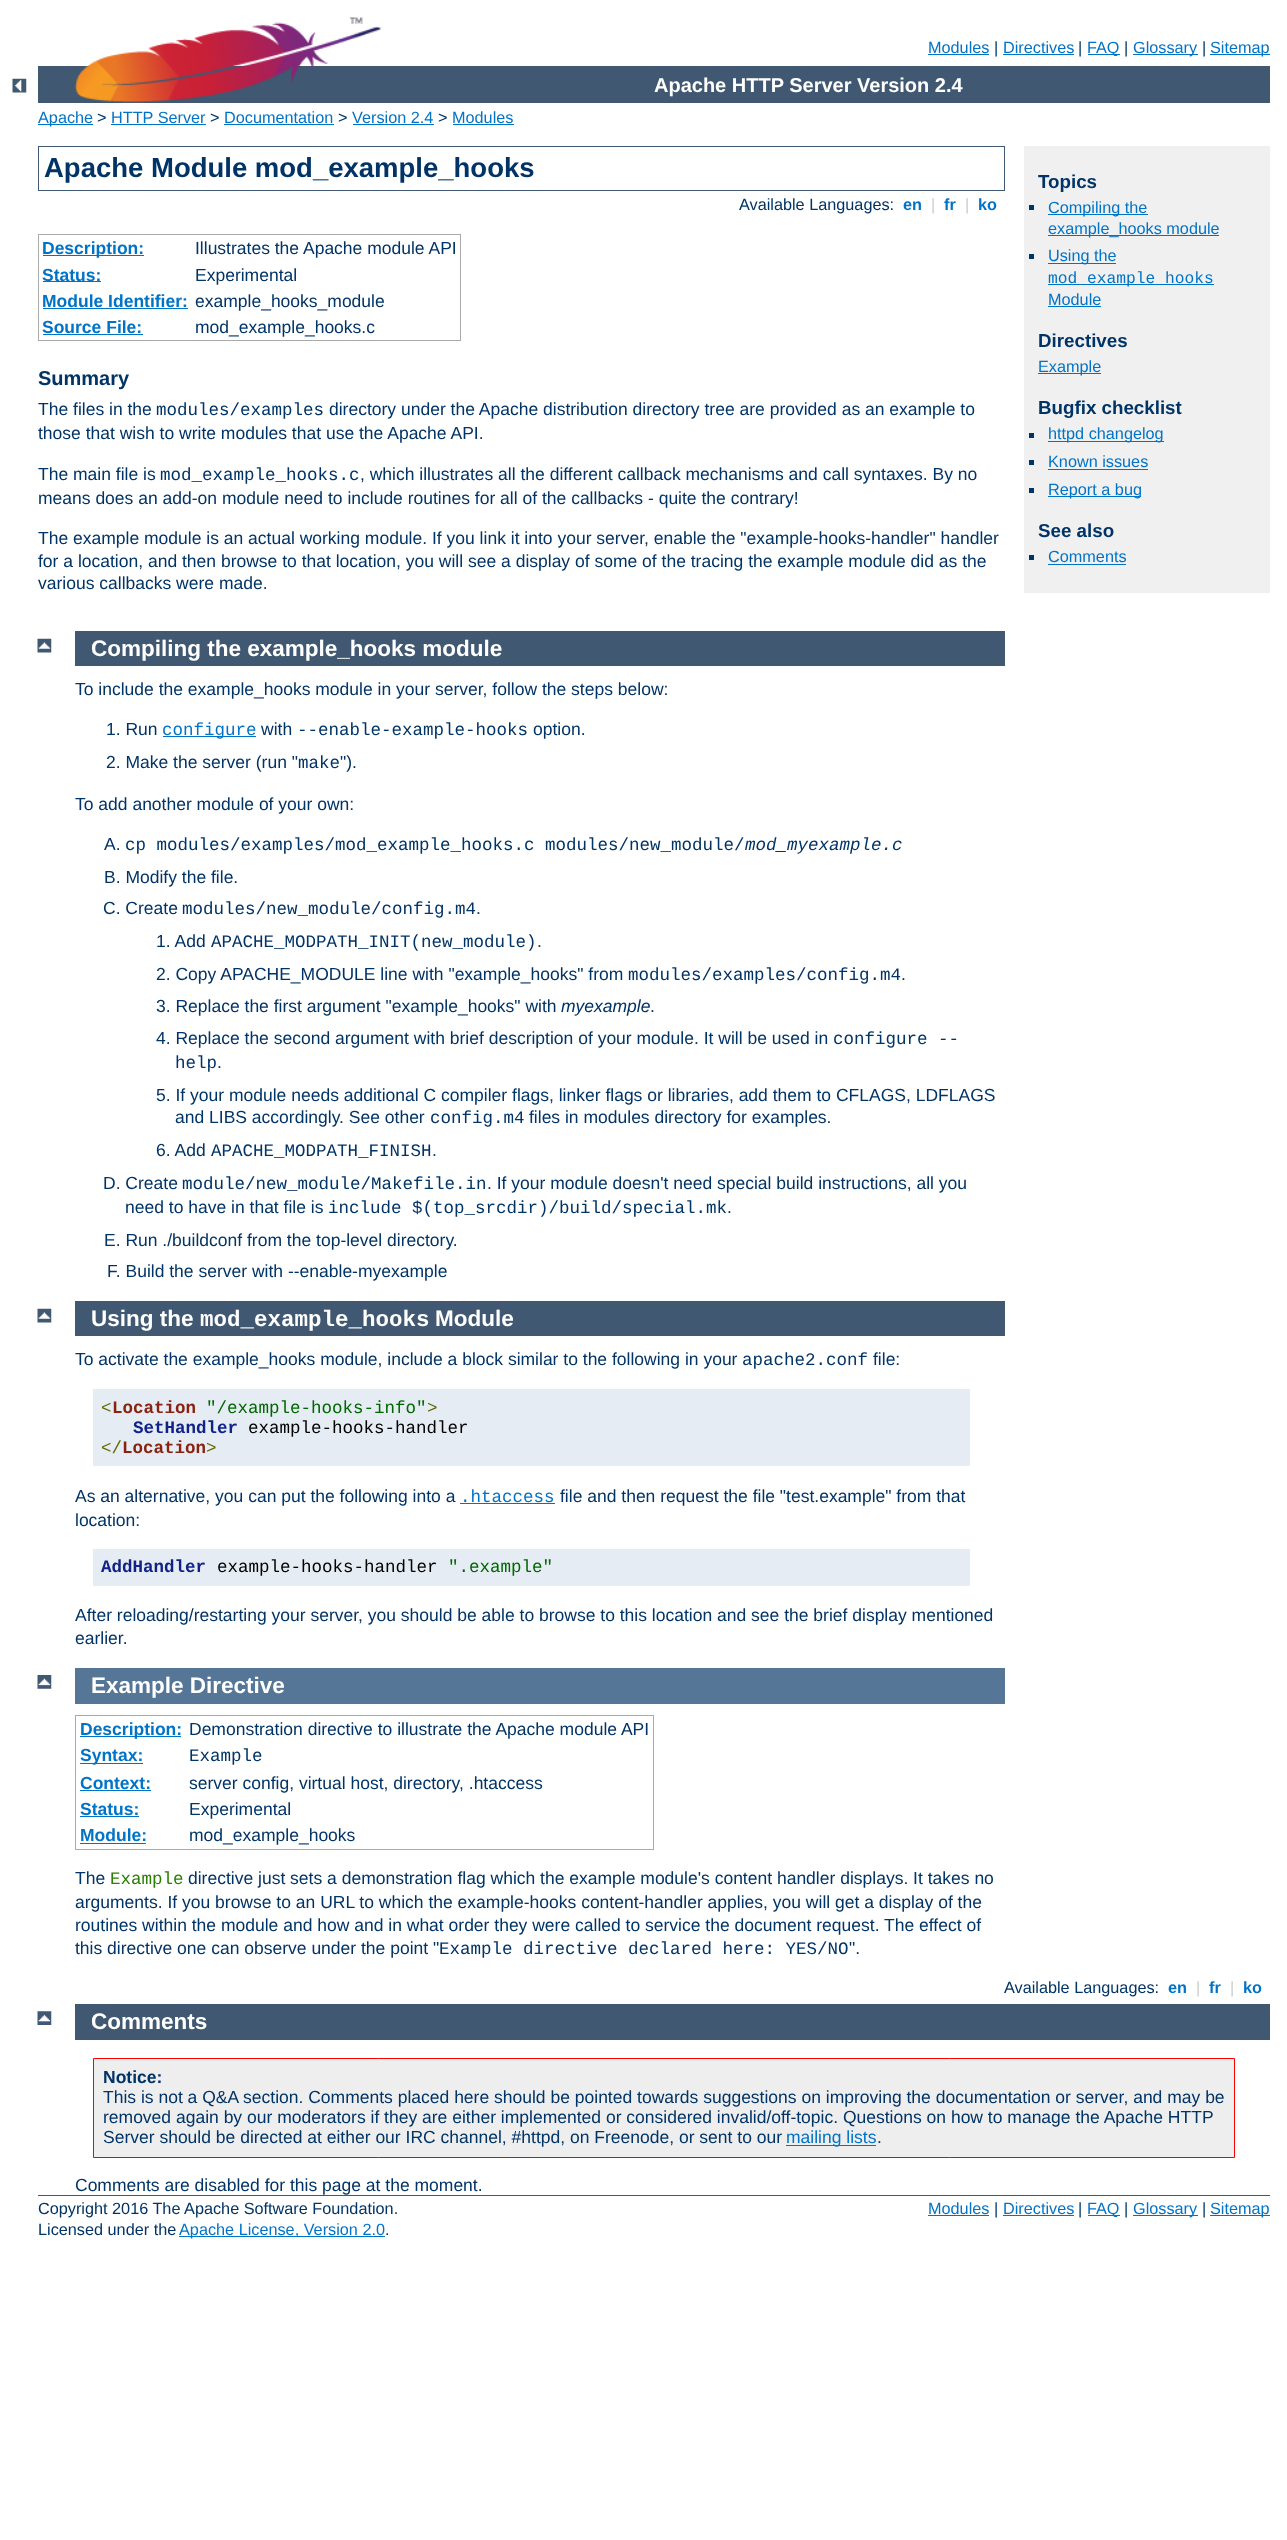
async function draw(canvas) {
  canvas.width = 1287
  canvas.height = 2540
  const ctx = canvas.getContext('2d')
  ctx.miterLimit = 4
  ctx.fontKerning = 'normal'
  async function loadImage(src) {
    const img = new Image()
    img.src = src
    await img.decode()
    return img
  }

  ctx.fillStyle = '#fff'
  ctx.fillRect(0, 0, 1287, 2540)
  ctx.drawImage(await loadImage('image0.png'), 12, 78, 15, 15)
  ctx.fillStyle = '#405871'
  ctx.fillRect(38, 66, 1232, 37)
  ctx.drawImage(await loadImage('image1.png'), 75, 17, 307, 86)
  ctx.font = '16.25px Liberation Sans'
  ctx.fillStyle = '#0073c7'
  ctx.fillText('Modules', 928, 53)
  ctx.fillRect(928, 54, 61, 1)
  ctx.fillStyle = '#036'
  ctx.fillText('|', 994, 53)
  ctx.fillStyle = '#0073c7'
  ctx.fillText('Directives', 1003, 53)
  ctx.fillRect(1003, 54, 71, 1)
  ctx.fillStyle = '#036'
  ctx.fillText('|', 1078, 53)
  ctx.fillStyle = '#0073c7'
  ctx.fillRect(1088, 54, 32, 1)
  ctx.fillText('FAQ', 1087, 53)
  ctx.fillStyle = '#036'
  ctx.fillText('|', 1124, 53)
  ctx.fillStyle = '#0073c7'
  ctx.fillRect(1133, 54, 65, 1)
  ctx.fillText('Glossary', 1133, 53)
  ctx.fillStyle = '#036'
  ctx.fillText('|', 1202, 53)
  ctx.fillStyle = '#0073c7'
  ctx.fillRect(1210, 54, 60, 1)
  ctx.fillText('Sitemap', 1210, 53)
  ctx.font = 'bold 20px Liberation Sans'
  ctx.fillStyle = '#fff'
  ctx.fillText('Apache HTTP Server Version 2.4', 654, 92)
  ctx.fillStyle = '#0073c7'
  ctx.fillRect(38, 124, 55, 1)
  ctx.font = '16.25px Liberation Sans'
  ctx.fillText('Apache', 38, 123)
  ctx.fillStyle = '#036'
  ctx.fillText('>', 97, 123)
  ctx.fillStyle = '#0073c7'
  ctx.fillText('HTTP Server', 111, 123)
  ctx.fillRect(111, 124, 95, 1)
  ctx.fillStyle = '#036'
  ctx.fillText('>', 210, 123)
  ctx.fillStyle = '#0073c7'
  ctx.fillText('Documentation', 224, 123)
  ctx.fillRect(224, 124, 110, 1)
  ctx.fillStyle = '#036'
  ctx.fillText('>', 338, 123)
  ctx.fillStyle = '#0073c7'
  ctx.fillText('Version 2.4', 352, 123)
  ctx.fillRect(353, 124, 81, 1)
  ctx.fillStyle = '#036'
  ctx.fillText('>', 438, 123)
  ctx.fillStyle = '#0073c7'
  ctx.fillText('Modules', 452, 123)
  ctx.fillRect(453, 124, 61, 1)
  ctx.strokeStyle = '#405871'
  ctx.strokeRect(38.5, 146.5, 966, 44)
  ctx.font = 'bold 27.5px Liberation Sans'
  ctx.fillStyle = '#036'
  ctx.fillText('Apache Module mod_example_hooks', 44, 177)
  ctx.font = '16.25px Liberation Sans'
  ctx.fillText('Available Languages:', 739, 210)
  ctx.font = 'bold 16.25px Liberation Sans'
  ctx.fillStyle = '#0073c7'
  ctx.fillText('en', 903, 210)
  ctx.font = '16.25px Liberation Sans'
  ctx.fillStyle = '#ccc'
  ctx.fillText('|', 931, 210)
  ctx.font = 'bold 16.25px Liberation Sans'
  ctx.fillStyle = '#0073c7'
  ctx.fillText('fr', 944, 210)
  ctx.font = '16.25px Liberation Sans'
  ctx.fillStyle = '#ccc'
  ctx.fillText('|', 965, 210)
  ctx.font = 'bold 16.25px Liberation Sans'
  ctx.fillStyle = '#0073c7'
  ctx.fillText('ko', 978, 210)
  ctx.fillStyle = '#aaa'
  ctx.fillRect(38, 234, 423, 1)
  ctx.fillRect(460, 234, 1, 107)
  ctx.fillRect(38, 340, 423, 1)
  ctx.fillRect(38, 234, 1, 107)
  ctx.fillStyle = '#0073c7'
  ctx.fillRect(43, 255, 101, 1)
  ctx.font = 'bold 17.5px Liberation Sans'
  ctx.fillText('Description:', 42, 254)
  ctx.font = '17.5px Liberation Sans'
  ctx.fillStyle = '#036'
  ctx.fillText('Illustrates the Apache module API', 195, 254)
  ctx.fillStyle = '#0073c7'
  ctx.fillRect(43, 281, 58, 1)
  ctx.font = 'bold 17.5px Liberation Sans'
  ctx.fillText('Status:', 42, 281)
  ctx.font = '17.5px Liberation Sans'
  ctx.fillStyle = '#036'
  ctx.fillText('Experimental', 195, 281)
  ctx.font = 'bold 17.5px Liberation Sans'
  ctx.fillStyle = '#0073c7'
  ctx.fillText('Module Identifier:', 42, 307)
  ctx.fillRect(43, 308, 145, 1)
  ctx.font = '17.5px Liberation Sans'
  ctx.fillStyle = '#036'
  ctx.fillText('example_hooks_module', 195, 307)
  ctx.font = 'bold 17.5px Liberation Sans'
  ctx.fillStyle = '#0073c7'
  ctx.fillText('Source File:', 42, 333)
  ctx.fillRect(43, 334, 100, 1)
  ctx.font = '17.5px Liberation Sans'
  ctx.fillStyle = '#036'
  ctx.fillText('mod_example_hooks.c', 195, 333)
  ctx.font = 'bold 20px Liberation Sans'
  ctx.fillText('Summary', 38, 385)
  ctx.font = '17.5px Liberation Sans'
  ctx.fillText('The files in the', 38, 415)
  ctx.font = '17.5px Liberation Mono'
  ctx.fillText('modules/examples', 156, 415)
  ctx.font = '17.5px Liberation Sans'
  ctx.fillText('directory under the Apache distribution directory tree are provided as an example to', 329, 415)
  ctx.fillText('those that wish to write modules that use the Apache API.', 38, 439)
  ctx.fillText('The main file is', 38, 480)
  ctx.font = '17.5px Liberation Mono'
  ctx.fillText('mod_example_hooks.c', 160, 480)
  ctx.font = '17.5px Liberation Sans'
  ctx.fillText(', which illustrates all the different callback mechanisms and call syntaxes. By no', 360, 480)
  ctx.fillText('means does an add-on module need to include routines for all of the callbacks - quite the contrary!', 38, 504)
  ctx.fillText('The example module is an actual working module. If you link it into your server, enable the "example-hooks-handler" handler', 38, 544)
  ctx.fillText('for a location, and then browse to that location, you will see a display of some of the tracing the example module did as the', 38, 567)
  ctx.fillText('various callbacks were made.', 38, 589)
  ctx.fillStyle = '#f0f0f0'
  ctx.fillRect(1024, 146, 246, 447)
  ctx.font = 'bold 18.75px Liberation Sans'
  ctx.fillStyle = '#036'
  ctx.fillText('Topics', 1038, 188)
  ctx.fillRect(1029, 205, 5, 5)
  ctx.fillStyle = '#0073c7'
  ctx.fillRect(1048, 214, 100, 1)
  ctx.font = '16.25px Liberation Sans'
  ctx.fillText('Compiling the', 1048, 213)
  ctx.fillRect(1048, 235, 171, 1)
  ctx.fillText('example_hooks module', 1048, 234)
  ctx.fillStyle = '#036'
  ctx.fillRect(1029, 254, 5, 5)
  ctx.fillStyle = '#0073c7'
  ctx.fillRect(1048, 263, 68, 1)
  ctx.fillText('Using the', 1048, 261)
  ctx.fillRect(1048, 284, 166, 1)
  ctx.font = '16.25px Liberation Mono'
  ctx.fillText('mod_example_hooks', 1048, 283)
  ctx.font = '16.25px Liberation Sans'
  ctx.fillText('Module', 1048, 305)
  ctx.fillRect(1048, 306, 53, 1)
  ctx.font = 'bold 18.75px Liberation Sans'
  ctx.fillStyle = '#036'
  ctx.fillText('Directives', 1038, 347)
  ctx.fillStyle = '#0073c7'
  ctx.fillRect(1038, 373, 63, 1)
  ctx.font = '16.25px Liberation Sans'
  ctx.fillText('Example', 1038, 372)
  ctx.font = 'bold 18.75px Liberation Sans'
  ctx.fillStyle = '#036'
  ctx.fillText('Bugfix checklist', 1038, 414)
  ctx.fillRect(1029, 433, 5, 5)
  ctx.fillStyle = '#0073c7'
  ctx.fillRect(1048, 441, 116, 1)
  ctx.font = '16.25px Liberation Sans'
  ctx.fillText('httpd changelog', 1048, 439)
  ctx.fillStyle = '#036'
  ctx.fillRect(1029, 460, 5, 5)
  ctx.fillStyle = '#0073c7'
  ctx.fillText('Known issues', 1048, 467)
  ctx.fillRect(1048, 469, 100, 1)
  ctx.fillStyle = '#036'
  ctx.fillRect(1029, 488, 5, 5)
  ctx.fillStyle = '#0073c7'
  ctx.fillRect(1048, 496, 93, 1)
  ctx.fillText('Report a bug', 1048, 495)
  ctx.font = 'bold 18.75px Liberation Sans'
  ctx.fillStyle = '#036'
  ctx.fillText('See also', 1038, 537)
  ctx.fillRect(1029, 555, 5, 5)
  ctx.font = '16.25px Liberation Sans'
  ctx.fillStyle = '#0073c7'
  ctx.fillText('Comments', 1048, 562)
  ctx.fillRect(1048, 564, 78, 1)
  ctx.drawImage(await loadImage('image2.png'), 37, 638, 15, 15)
  ctx.fillStyle = '#405871'
  ctx.fillRect(75, 631, 930, 35)
  ctx.font = 'bold 22.5px Liberation Sans'
  ctx.fillStyle = '#fff'
  ctx.fillText('Compiling the example_hooks module', 91, 656)
  ctx.font = '17.5px Liberation Sans'
  ctx.fillStyle = '#036'
  ctx.fillText('To include the example_hooks module in your server, follow the steps below:', 75, 695)
  ctx.fillText('1. Run', 106, 735)
  ctx.fillStyle = '#0073c7'
  ctx.fillRect(163, 736, 93, 1)
  ctx.font = '17.5px Liberation Mono'
  ctx.fillText('configure', 162, 735)
  ctx.font = '17.5px Liberation Sans'
  ctx.fillStyle = '#036'
  ctx.fillText('with', 261, 735)
  ctx.font = '17.5px Liberation Mono'
  ctx.fillText('--enable-example-hooks', 297, 735)
  ctx.font = '17.5px Liberation Sans'
  ctx.fillText('option.', 533, 735)
  ctx.fillText('2. Make the server (run "', 106, 768)
  ctx.font = '17.5px Liberation Mono'
  ctx.fillText('make', 298, 768)
  ctx.font = '17.5px Liberation Sans'
  ctx.fillText('").', 340, 768)
  ctx.fillText('To add another module of your own:', 75, 810)
  ctx.fillText('A.', 104, 850)
  ctx.font = '17.5px Liberation Mono'
  ctx.fillText('cp modules/examples/mod_example_hooks.c modules/new_module/', 125, 850)
  ctx.font = 'italic 17.5px Liberation Mono'
  ctx.fillText('mod_myexample.c', 745, 850)
  ctx.font = '17.5px Liberation Sans'
  ctx.fillText('B. Modify the file.', 104, 883)
  ctx.fillText('C. Create', 103, 914)
  ctx.font = '17.5px Liberation Mono'
  ctx.fillText('modules/new_module/config.m4', 182, 914)
  ctx.font = '17.5px Liberation Sans'
  ctx.fillText('.', 476, 914)
  ctx.fillText('1. Add', 156, 947)
  ctx.font = '17.5px Liberation Mono'
  ctx.fillText('APACHE_MODPATH_INIT(new_module)', 211, 947)
  ctx.font = '17.5px Liberation Sans'
  ctx.fillText('.', 537, 947)
  ctx.fillText('2. Copy APACHE_MODULE line with "example_hooks" from', 156, 980)
  ctx.font = '17.5px Liberation Mono'
  ctx.fillText('modules/examples/config.m4', 628, 980)
  ctx.font = '17.5px Liberation Sans'
  ctx.fillText('.', 901, 980)
  ctx.fillText('3. Replace the first argument "example_hooks" with', 156, 1012)
  ctx.font = 'italic 17.5px Liberation Sans'
  ctx.fillText('myexample', 561, 1012)
  ctx.font = '17.5px Liberation Sans'
  ctx.fillText('.', 650, 1012)
  ctx.fillText('4. Replace the second argument with brief description of your module. It will be used in', 156, 1044)
  ctx.font = '17.5px Liberation Mono'
  ctx.fillText('configure --', 833, 1044)
  ctx.fillText('help', 175, 1068)
  ctx.font = '17.5px Liberation Sans'
  ctx.fillText('.', 217, 1068)
  ctx.fillText('5. If your module needs additional C compiler flags, linker flags or libraries, add them to CFLAGS, LDFLAGS', 156, 1101)
  ctx.fillText('and LIBS accordingly. See other', 175, 1123)
  ctx.font = '17.5px Liberation Mono'
  ctx.fillText('config.m4', 430, 1123)
  ctx.font = '17.5px Liberation Sans'
  ctx.fillText('files in modules directory for examples.', 529, 1123)
  ctx.fillText('6. Add', 156, 1156)
  ctx.font = '17.5px Liberation Mono'
  ctx.fillText('APACHE_MODPATH_FINISH', 211, 1156)
  ctx.font = '17.5px Liberation Sans'
  ctx.fillText('.', 432, 1156)
  ctx.fillText('D. Create', 103, 1189)
  ctx.font = '17.5px Liberation Mono'
  ctx.fillText('module/new_module/Makefile.in', 182, 1189)
  ctx.font = '17.5px Liberation Sans'
  ctx.fillText('. If your module doesn\'t need special build instructions, all you', 487, 1189)
  ctx.fillText('need to have in that file is', 125, 1213)
  ctx.font = '17.5px Liberation Mono'
  ctx.fillText('include $(top_srcdir)/build/special.mk', 328, 1213)
  ctx.font = '17.5px Liberation Sans'
  ctx.fillText('.', 727, 1213)
  ctx.fillText('E. Run ./buildconf from the top-level directory.', 104, 1246)
  ctx.fillText('F. Build the server with --enable-myexample', 107, 1277)
  ctx.drawImage(await loadImage('image2.png'), 37, 1308, 15, 15)
  ctx.fillStyle = '#405871'
  ctx.fillRect(75, 1301, 930, 35)
  ctx.font = 'bold 22.5px Liberation Sans'
  ctx.fillStyle = '#fff'
  ctx.fillText('Using the', 91, 1326)
  ctx.font = 'bold 22.5px Liberation Mono'
  ctx.fillText('mod_example_hooks', 200, 1326)
  ctx.font = 'bold 22.5px Liberation Sans'
  ctx.fillText('Module', 435, 1326)
  ctx.font = '17.5px Liberation Sans'
  ctx.fillStyle = '#036'
  ctx.fillText('To activate the example_hooks module, include a block similar to the following in your', 75, 1365)
  ctx.font = '17.5px Liberation Mono'
  ctx.fillText('apache2.conf', 742, 1365)
  ctx.font = '17.5px Liberation Sans'
  ctx.fillText('file:', 873, 1365)
  ctx.fillStyle = '#e5ecf3'
  ctx.fillRect(93, 1389, 877, 77)
  ctx.font = '17.5px Liberation Mono'
  ctx.fillStyle = '#660'
  ctx.fillText('<', 101, 1413)
  ctx.font = 'bold 17.5px Liberation Mono'
  ctx.fillStyle = '#821'
  ctx.fillText('Location', 112, 1413)
  ctx.font = '17.5px Liberation Mono'
  ctx.fillStyle = '#060'
  ctx.fillText('"/example-hooks-info"', 206, 1413)
  ctx.fillStyle = '#660'
  ctx.fillText('>', 427, 1413)
  ctx.font = 'bold 17.5px Liberation Mono'
  ctx.fillStyle = '#128'
  ctx.fillText('SetHandler', 133, 1433)
  ctx.font = '17.5px Liberation Mono'
  ctx.fillStyle = '#000'
  ctx.fillText('example-hooks-handler', 248, 1433)
  ctx.fillStyle = '#660'
  ctx.fillText('<\/', 101, 1453)
  ctx.font = 'bold 17.5px Liberation Mono'
  ctx.fillStyle = '#821'
  ctx.fillText('Location', 122, 1453)
  ctx.font = '17.5px Liberation Mono'
  ctx.fillStyle = '#660'
  ctx.fillText('>', 206, 1453)
  ctx.font = '17.5px Liberation Sans'
  ctx.fillStyle = '#036'
  ctx.fillText('As an alternative, you can put the following into a', 75, 1502)
  ctx.font = '17.5px Liberation Mono'
  ctx.fillStyle = '#0073c7'
  ctx.fillText('.htaccess', 460, 1502)
  ctx.fillRect(460, 1503, 95, 1)
  ctx.font = '17.5px Liberation Sans'
  ctx.fillStyle = '#036'
  ctx.fillText('file and then request the file "test.example" from that', 560, 1502)
  ctx.fillText('location:', 75, 1526)
  ctx.fillStyle = '#e5ecf3'
  ctx.fillRect(93, 1549, 877, 37)
  ctx.font = 'bold 17.5px Liberation Mono'
  ctx.fillStyle = '#128'
  ctx.fillText('AddHandler', 101, 1572)
  ctx.font = '17.5px Liberation Mono'
  ctx.fillStyle = '#000'
  ctx.fillText('example-hooks-handler', 217, 1572)
  ctx.fillStyle = '#060'
  ctx.fillText('".example"', 448, 1572)
  ctx.font = '17.5px Liberation Sans'
  ctx.fillStyle = '#036'
  ctx.fillText('After reloading/restarting your server, you should be able to browse to this location and see the brief display mentioned', 75, 1621)
  ctx.fillText('earlier.', 75, 1644)
  ctx.drawImage(await loadImage('image3.png'), 37, 1675, 15, 14)
  ctx.fillStyle = '#557697'
  ctx.fillRect(75, 1668, 930, 36)
  ctx.font = 'bold 22.5px Liberation Sans'
  ctx.fillStyle = '#fff'
  ctx.fillText('Example Directive', 91, 1693)
  ctx.fillStyle = '#aaa'
  ctx.fillRect(75, 1715, 579, 1)
  ctx.fillRect(653, 1715, 1, 135)
  ctx.fillRect(75, 1849, 579, 1)
  ctx.fillRect(75, 1715, 1, 135)
  ctx.fillStyle = '#0073c7'
  ctx.fillRect(80, 1736, 101, 1)
  ctx.font = 'bold 17.5px Liberation Sans'
  ctx.fillText('Description:', 80, 1735)
  ctx.font = '17.5px Liberation Sans'
  ctx.fillStyle = '#036'
  ctx.fillText('Demonstration directive to illustrate the Apache module API', 189, 1735)
  ctx.fillStyle = '#0073c7'
  ctx.fillRect(80, 1763, 63, 1)
  ctx.font = 'bold 17.5px Liberation Sans'
  ctx.fillText('Syntax:', 80, 1761)
  ctx.font = '17.5px Liberation Mono'
  ctx.fillStyle = '#036'
  ctx.fillText('Example', 189, 1761)
  ctx.font = 'bold 17.5px Liberation Sans'
  ctx.fillStyle = '#0073c7'
  ctx.fillText('Context:', 80, 1789)
  ctx.fillRect(80, 1790, 71, 1)
  ctx.font = '17.5px Liberation Sans'
  ctx.fillStyle = '#036'
  ctx.fillText('server config, virtual host, directory, .htaccess', 189, 1789)
  ctx.font = 'bold 17.5px Liberation Sans'
  ctx.fillStyle = '#0073c7'
  ctx.fillText('Status:', 80, 1815)
  ctx.fillRect(80, 1816, 59, 1)
  ctx.font = '17.5px Liberation Sans'
  ctx.fillStyle = '#036'
  ctx.fillText('Experimental', 189, 1815)
  ctx.font = 'bold 17.5px Liberation Sans'
  ctx.fillStyle = '#0073c7'
  ctx.fillText('Module:', 80, 1841)
  ctx.fillRect(80, 1843, 66, 1)
  ctx.font = '17.5px Liberation Sans'
  ctx.fillStyle = '#036'
  ctx.fillText('mod_example_hooks', 189, 1841)
  ctx.fillText('The', 75, 1884)
  ctx.font = '17.5px Liberation Mono'
  ctx.fillStyle = '#287f00'
  ctx.fillText('Example', 110, 1884)
  ctx.font = '17.5px Liberation Sans'
  ctx.fillStyle = '#036'
  ctx.fillText('directive just sets a demonstration flag which the example module\'s content handler displays. It takes no', 188, 1884)
  ctx.fillText('arguments. If you browse to an URL to which the example-hooks content-handler applies, you will get a display of the', 75, 1908)
  ctx.fillText('routines within the module and how and in what order they were called to service the document request. The effect of', 75, 1931)
  ctx.fillText('this directive one can observe under the point "', 75, 1954)
  ctx.font = '17.5px Liberation Mono'
  ctx.fillText('Example directive declared here: YES/NO', 439, 1954)
  ctx.font = '17.5px Liberation Sans'
  ctx.fillText('".', 849, 1954)
  ctx.font = '16.25px Liberation Sans'
  ctx.fillText('Available Languages:', 1004, 1993)
  ctx.font = 'bold 16.25px Liberation Sans'
  ctx.fillStyle = '#0073c7'
  ctx.fillText('en', 1168, 1993)
  ctx.font = '16.25px Liberation Sans'
  ctx.fillStyle = '#ccc'
  ctx.fillText('|', 1196, 1993)
  ctx.font = 'bold 16.25px Liberation Sans'
  ctx.fillStyle = '#0073c7'
  ctx.fillText('fr', 1209, 1993)
  ctx.font = '16.25px Liberation Sans'
  ctx.fillStyle = '#ccc'
  ctx.fillText('|', 1230, 1993)
  ctx.font = 'bold 16.25px Liberation Sans'
  ctx.fillStyle = '#0073c7'
  ctx.fillText('ko', 1243, 1993)
  ctx.drawImage(await loadImage('image4.png'), 37, 2011, 15, 14)
  ctx.fillStyle = '#405871'
  ctx.fillRect(75, 2004, 1195, 36)
  ctx.font = 'bold 22.5px Liberation Sans'
  ctx.fillStyle = '#fff'
  ctx.fillText('Comments', 91, 2029)
  ctx.fillStyle = '#eee'
  ctx.beginPath()
  ctx.rect(93.5, 2058.5, 1141, 99)
  ctx.fill()
  ctx.strokeStyle = '#f00'
  ctx.stroke()
  ctx.font = 'bold 17.5px Liberation Sans'
  ctx.fillStyle = '#036'
  ctx.fillText('Notice:', 103, 2083)
  ctx.font = '17.5px Liberation Sans'
  ctx.fillText('This is not a Q&A section. Comments placed here should be pointed towards suggestions on improving the documentation or server, and may be', 103, 2103)
  ctx.fillText('removed again by our moderators if they are either implemented or considered invalid/off-topic. Questions on how to manage the Apache HTTP', 103, 2123)
  ctx.fillText('Server should be directed at either our IRC channel, #httpd, on Freenode, or sent to our', 103, 2143)
  ctx.fillStyle = '#0073c7'
  ctx.fillRect(786, 2145, 90, 1)
  ctx.fillText('mailing lists', 786, 2143)
  ctx.fillStyle = '#036'
  ctx.fillText('.', 877, 2143)
  ctx.fillText('Comments are disabled for this page at the moment.', 75, 2191)
  ctx.fillStyle = '#405871'
  ctx.fillRect(38, 2195, 1232, 1)
  ctx.font = '16.25px Liberation Sans'
  ctx.fillStyle = '#036'
  ctx.fillText('Copyright 2016 The Apache Software Foundation.', 38, 2214)
  ctx.fillText('Licensed under the', 38, 2235)
  ctx.fillStyle = '#0073c7'
  ctx.fillRect(179, 2236, 206, 1)
  ctx.fillText('Apache License, Version 2.0', 179, 2235)
  ctx.fillStyle = '#036'
  ctx.fillText('.', 385, 2235)
  ctx.fillStyle = '#0073c7'
  ctx.fillText('Modules', 928, 2214)
  ctx.fillRect(928, 2215, 61, 1)
  ctx.fillStyle = '#036'
  ctx.fillText('|', 994, 2214)
  ctx.fillStyle = '#0073c7'
  ctx.fillText('Directives', 1003, 2214)
  ctx.fillRect(1003, 2215, 71, 1)
  ctx.fillStyle = '#036'
  ctx.fillText('|', 1078, 2214)
  ctx.fillStyle = '#0073c7'
  ctx.fillRect(1088, 2215, 32, 1)
  ctx.fillText('FAQ', 1087, 2214)
  ctx.fillStyle = '#036'
  ctx.fillText('|', 1124, 2214)
  ctx.fillStyle = '#0073c7'
  ctx.fillRect(1133, 2215, 65, 1)
  ctx.fillText('Glossary', 1133, 2214)
  ctx.fillStyle = '#036'
  ctx.fillText('|', 1202, 2214)
  ctx.fillStyle = '#0073c7'
  ctx.fillRect(1210, 2215, 60, 1)
  ctx.fillText('Sitemap', 1210, 2214)
}

draw(document.querySelector('canvas'))
